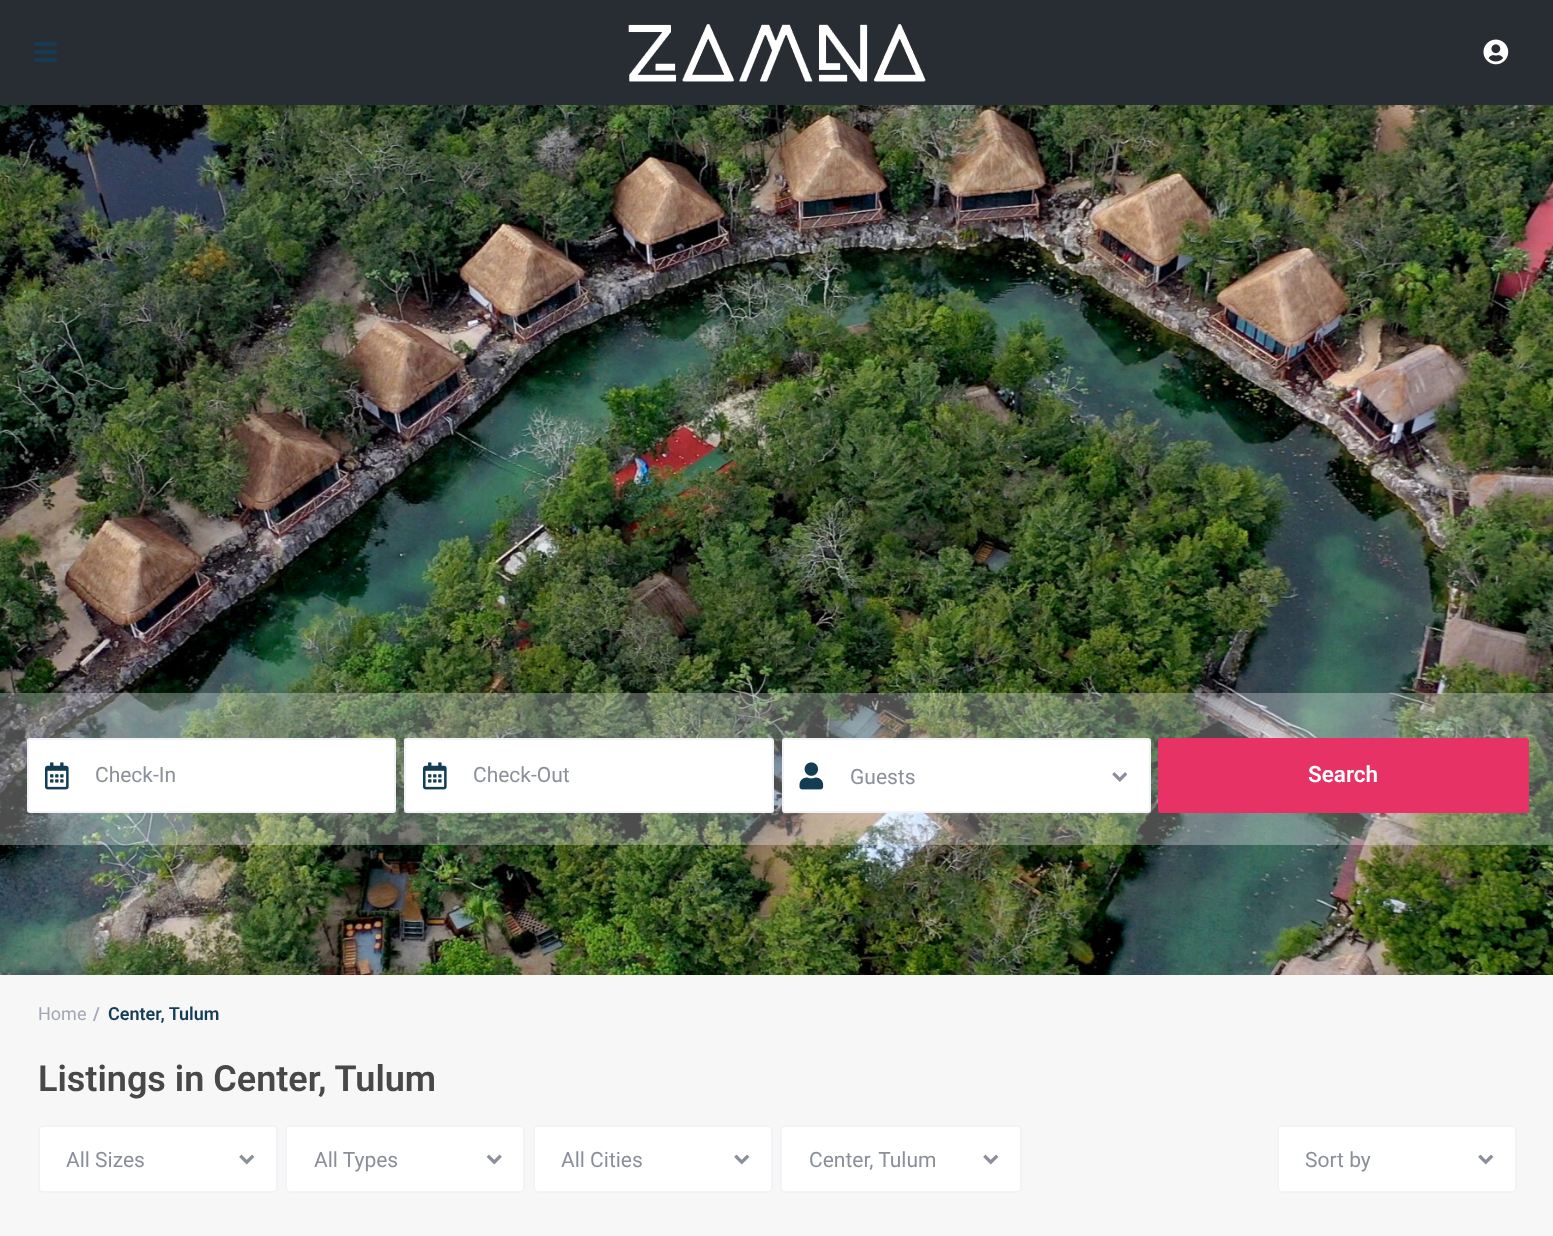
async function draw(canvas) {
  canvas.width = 1553
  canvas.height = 1236
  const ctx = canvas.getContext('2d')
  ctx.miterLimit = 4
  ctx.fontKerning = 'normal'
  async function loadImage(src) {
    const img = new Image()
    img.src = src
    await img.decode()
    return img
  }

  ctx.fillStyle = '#f7f7f7'
  ctx.fillRect(0, 0, 1553, 1236)
  ctx.fillStyle = '#282d33'
  ctx.fillRect(0, 0, 1553, 105)
  ctx.drawImage(await loadImage('image0.png'), 34, 42, 23, 20)
  ctx.drawImage(await loadImage('image1.png'), 628, 24, 298, 58)
  ctx.drawImage(await loadImage('image2.png'), 1483, 39, 26, 26)
  ctx.drawImage(await loadImage('image3.png'), 0, 105, 1553, 870)
  ctx.fillStyle = '#ffffff4d'
  ctx.fillRect(0, 693, 1553, 152)
  ctx.fillStyle = '#fff'
  ctx.beginPath()
  ctx.roundRect(28, 739, 367, 73, 2)
  ctx.fill()
  ctx.strokeStyle = '#f1f3f7'
  ctx.lineWidth = 2
  ctx.stroke()
  ctx.drawImage(await loadImage('image4.png'), 45, 762, 24, 28)
  ctx.font = '21px Roboto'
  ctx.fillStyle = '#8a8f9a'
  ctx.fillText('Check-In', 95, 782)
  ctx.fillStyle = '#fff'
  ctx.beginPath()
  ctx.roundRect(405, 739, 368, 73, 2)
  ctx.fill()
  ctx.stroke()
  ctx.drawImage(await loadImage('image4.png'), 423, 762, 24, 28)
  ctx.fillStyle = '#8a8f9a'
  ctx.fillText('Check-Out', 473, 782)
  ctx.fillStyle = '#fff'
  ctx.beginPath()
  ctx.roundRect(783, 739, 367, 73, 2)
  ctx.fill()
  ctx.stroke()
  ctx.drawImage(await loadImage('image5.png'), 799, 762, 25, 28)
  ctx.fillStyle = '#8a8f9a'
  ctx.fillText('Guests', 850, 784)
  ctx.drawImage(await loadImage('image6.png'), 1112, 772, 16, 10)
  ctx.fillStyle = '#e63264'
  ctx.beginPath()
  ctx.roundRect(1158, 738, 371, 75, 3)
  ctx.fill()
  ctx.font = '600 22.5px Roboto'
  ctx.fillStyle = '#fff'
  ctx.fillText('Search', 1308, 782)
  ctx.font = '18px Roboto'
  ctx.fillStyle = '#a1a7b4'
  ctx.fillText('Home', 38, 1020)
  ctx.font = '600 18px Roboto'
  ctx.fillText('/', 93, 1020)
  ctx.fillStyle = '#143d55'
  ctx.fillText('Center, Tulum', 108, 1020)
  ctx.font = '600 36px Roboto'
  ctx.fillStyle = '#484848'
  ctx.fillText('Listings in Center, Tulum', 38, 1091)
  ctx.fillStyle = '#fff'
  ctx.beginPath()
  ctx.roundRect(39, 1126, 238, 66, 4)
  ctx.fill()
  ctx.stroke()
  ctx.font = '21px Roboto'
  ctx.fillStyle = '#8a8f9a'
  ctx.fillText('All Sizes', 66, 1167)
  ctx.drawImage(await loadImage('image7.png'), 239, 1154, 16, 11)
  ctx.fillStyle = '#fff'
  ctx.beginPath()
  ctx.roundRect(286, 1126, 238, 66, 4)
  ctx.fill()
  ctx.stroke()
  ctx.fillStyle = '#8a8f9a'
  ctx.fillText('All Types', 314, 1167)
  ctx.drawImage(await loadImage('image8.png'), 486, 1154, 16, 11)
  ctx.fillStyle = '#fff'
  ctx.beginPath()
  ctx.roundRect(534, 1126, 238, 66, 4)
  ctx.fill()
  ctx.stroke()
  ctx.fillStyle = '#8a8f9a'
  ctx.fillText('All Cities', 561, 1167)
  ctx.drawImage(await loadImage('image7.png'), 734, 1154, 16, 11)
  ctx.fillStyle = '#fff'
  ctx.beginPath()
  ctx.roundRect(781, 1126, 240, 66, 4)
  ctx.fill()
  ctx.stroke()
  ctx.fillStyle = '#8a8f9a'
  ctx.fillText('Center, Tulum', 809, 1167)
  ctx.drawImage(await loadImage('image7.png'), 983, 1154, 16, 11)
  ctx.fillStyle = '#fff'
  ctx.beginPath()
  ctx.roundRect(1278, 1126, 238, 66, 4)
  ctx.fill()
  ctx.stroke()
  ctx.fillStyle = '#8a8f9a'
  ctx.fillText('Sort by', 1305, 1167)
  ctx.drawImage(await loadImage('image7.png'), 1478, 1154, 16, 11)
}

draw(document.querySelector('canvas'))
